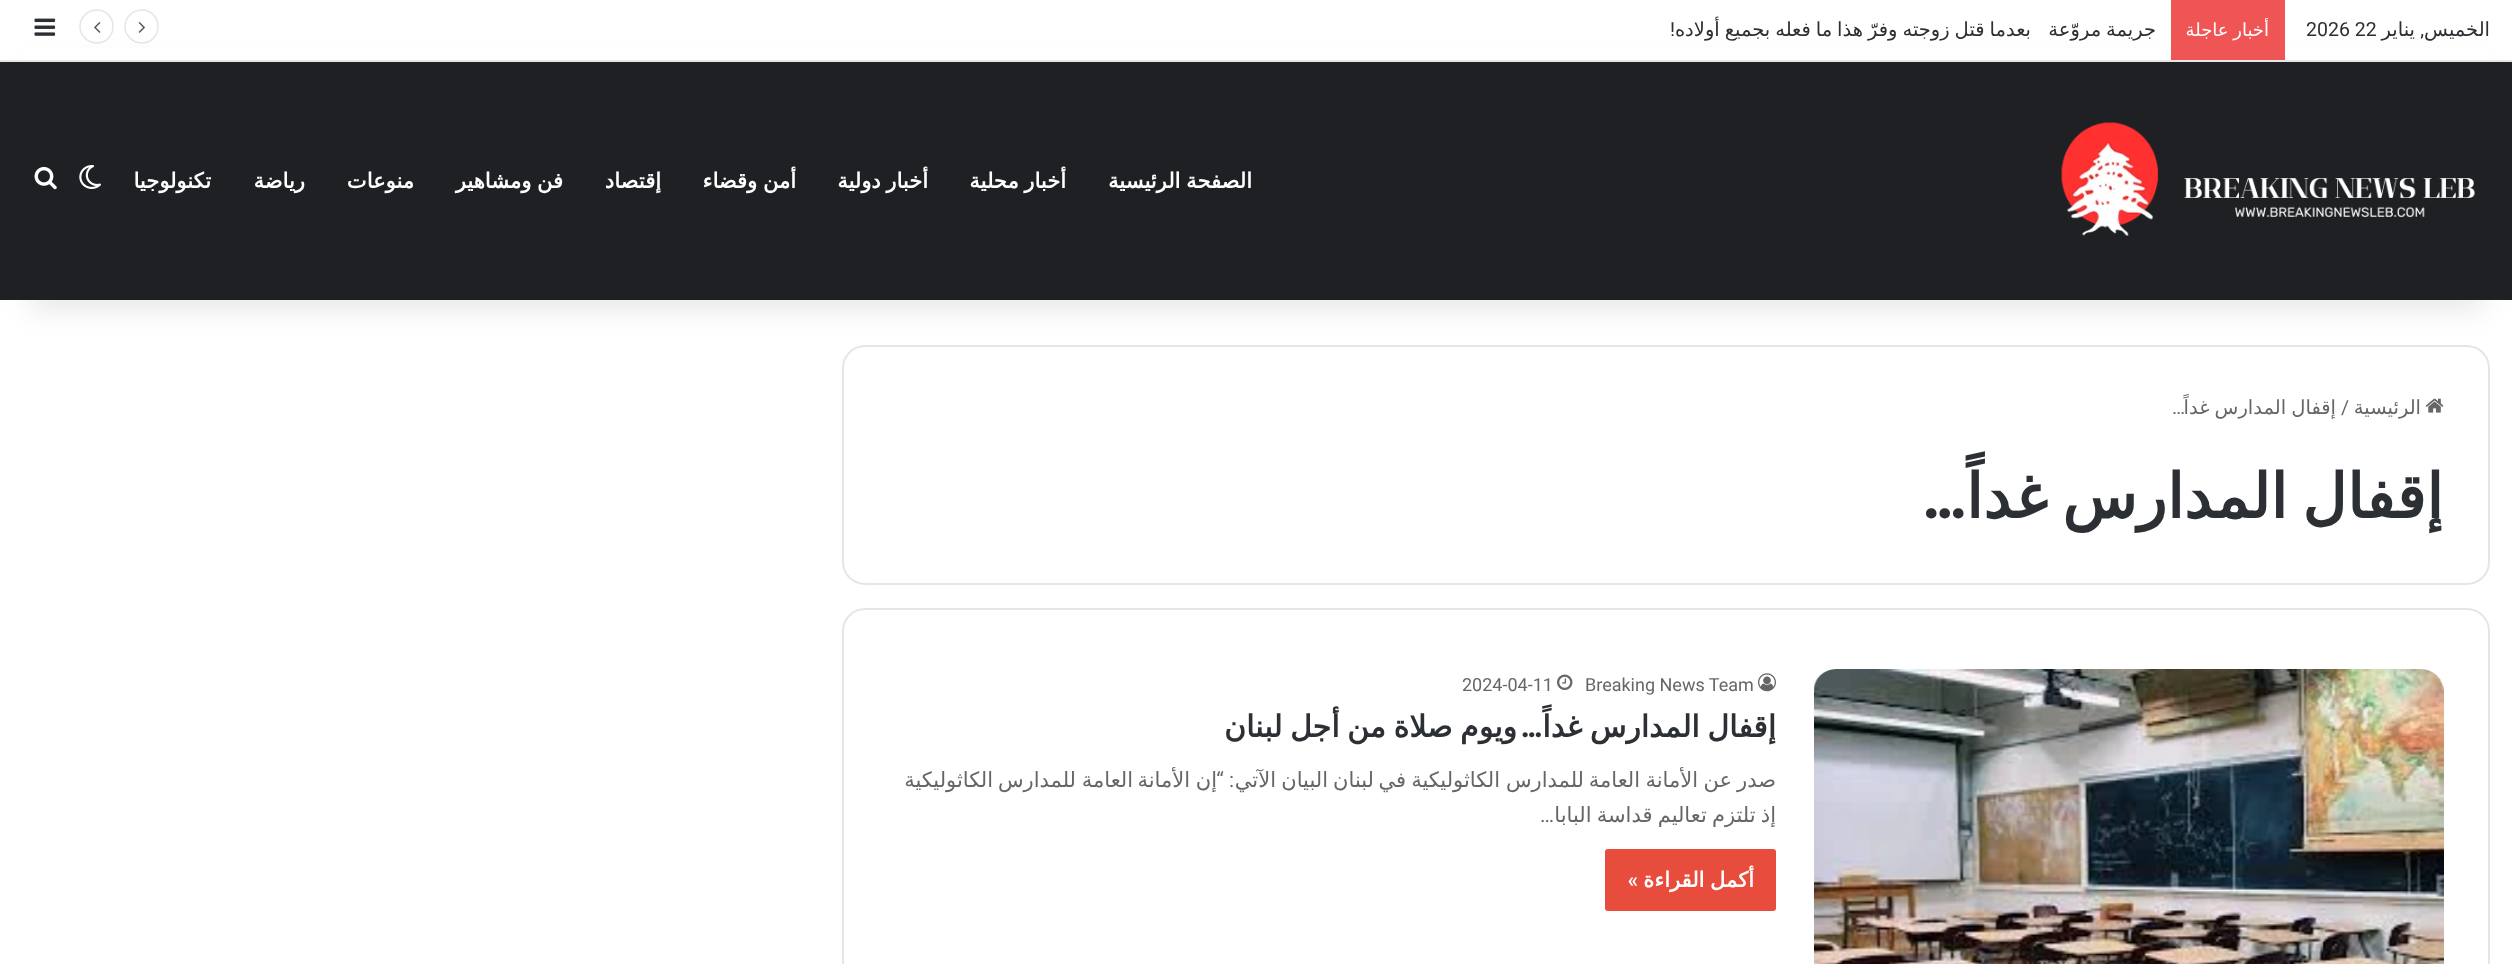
async function draw(canvas) {
  canvas.width = 2512
  canvas.height = 964
  const ctx = canvas.getContext('2d')
  ctx.miterLimit = 4
  ctx.fontKerning = 'normal'
  async function loadImage(src) {
    const img = new Image()
    img.src = src
    await img.decode()
    return img
  }

  ctx.fillStyle = '#fff'
  ctx.fillRect(0, 0, 2512, 964)
  ctx.beginPath()
  ctx.roundRect(843, 346, 1646, 238, 22)
  ctx.strokeStyle = '#e6e6e6'
  ctx.lineWidth = 2
  ctx.stroke()
  ctx.fillStyle = '#0000001a'
  ctx.filter = 'blur(15px)'
  ctx.beginPath()
  ctx.rect(30, 68, 2453, 240)
  ctx.fill()
  ctx.filter = 'none'
  ctx.fillStyle = '#fff'
  ctx.fillRect(24, 49, 2465, 11)
  ctx.fillStyle = '#e6e6e6'
  ctx.fillRect(0, 60, 2512, 2)
  ctx.direction = 'rtl'
  ctx.font = '19.5px DejaVu Sans'
  ctx.fillStyle = '#2c2f34'
  ctx.fillText('الخميس', 2490, 36)
  ctx.font = '19.5px Roboto'
  ctx.fillText(',', 2424, 36)
  ctx.font = '19.5px DejaVu Sans'
  ctx.fillText('يناير', 2415, 36)
  ctx.direction = 'ltr'
  ctx.font = '19.5px Roboto'
  ctx.fillText('2026 22', 2306, 36)
  ctx.fillStyle = '#f05555'
  ctx.fillRect(2171, 0, 114, 60)
  ctx.wordSpacing = '-1px'
  ctx.direction = 'rtl'
  ctx.font = '18px DejaVu Sans'
  ctx.fillStyle = '#fff'
  ctx.fillText('أخبار عاجلة', 2269, 36)
  ctx.wordSpacing = '-1.25px'
  ctx.font = '19.5px DejaVu Sans'
  ctx.fillStyle = '#2c2f34'
  ctx.fillText('جريمة مروّعة', 2156, 36)
  ctx.fillText('بعدما قتل زوجته وفرّ هذا ما فعله بجميع أولاده', 2031, 36)
  ctx.wordSpacing = '0px'
  ctx.font = '19.5px Roboto'
  ctx.fillText('!', 1675, 36)
  ctx.beginPath()
  ctx.moveTo(142, 43)
  ctx.bezierCurveTo(132.5, 43, 125, 35.5, 125, 26.5)
  ctx.bezierCurveTo(125, 17.5, 132.5, 10, 142, 10)
  ctx.bezierCurveTo(151, 10, 158, 17.5, 158, 26.5)
  ctx.bezierCurveTo(158, 35.5, 151, 43, 142, 43)
  ctx.closePath()
  ctx.lineWidth = 1.5
  ctx.stroke()
  ctx.drawImage(await loadImage('image0.png'), 138, 22, 7, 11)
  ctx.beginPath()
  ctx.moveTo(97, 43)
  ctx.bezierCurveTo(87.5, 43, 80, 35.5, 80, 26.5)
  ctx.bezierCurveTo(80, 17.5, 87.5, 10, 97, 10)
  ctx.bezierCurveTo(106, 10, 113, 17.5, 113, 26.5)
  ctx.bezierCurveTo(113, 35.5, 106, 43, 97, 43)
  ctx.closePath()
  ctx.stroke()
  ctx.drawImage(await loadImage('image1.png'), 94, 22, 7, 11)
  ctx.drawImage(await loadImage('image2.png'), 34, 18, 22, 18)
  ctx.fillStyle = '#1f2024'
  ctx.fillRect(0, 62, 2512, 238)
  ctx.drawImage(await loadImage('image3.png'), 2061, 121, 414, 115)
  ctx.wordSpacing = '-1px'
  ctx.font = 'bold 21px DejaVu Sans'
  ctx.fillStyle = '#fff'
  ctx.fillText('الصفحة الرئيسية', 1252, 188)
  ctx.fillText('أخبار محلية', 1066, 188)
  ctx.fillText('أخبار دولية', 928, 188)
  ctx.fillText('أمن وقضاء', 796, 188)
  ctx.wordSpacing = '0px'
  ctx.fillText('إقتصاد', 661, 188)
  ctx.wordSpacing = '-1px'
  ctx.fillText('فن ومشاهير', 563, 188)
  ctx.wordSpacing = '0px'
  ctx.fillText('منوعات', 414, 188)
  ctx.fillText('رياضة', 305, 188)
  ctx.fillText('تكنولوجيا', 211, 188)
  ctx.drawImage(await loadImage('image4.png'), 79, 165, 22, 24)
  ctx.drawImage(await loadImage('image5.png'), 34, 166, 23, 24)
  ctx.drawImage(await loadImage('image6.png'), 2425, 398, 19, 15)
  ctx.font = '19.5px DejaVu Sans'
  ctx.fillStyle = '#666'
  ctx.fillText('الرئيسية', 2421, 414)
  ctx.direction = 'ltr'
  ctx.font = '19.5px Roboto'
  ctx.fillText('/', 2341, 414)
  ctx.wordSpacing = '-1px'
  ctx.direction = 'rtl'
  ctx.font = '19.5px DejaVu Sans'
  ctx.fillText('إقفال المدارس غداً', 2336, 414)
  ctx.wordSpacing = '0px'
  ctx.font = '19.5px Roboto'
  ctx.fillText('…', 2185, 414)
  ctx.wordSpacing = '-5px'
  ctx.font = 'bold 61.5px DejaVu Sans'
  ctx.fillStyle = '#2c2f34'
  ctx.fillText('إقفال المدارس غداً', 2443, 518)
  ctx.wordSpacing = '0px'
  ctx.font = '600 61.5px Poppins'
  ctx.fillText('…', 1966, 518)
  ctx.beginPath()
  ctx.roundRect(843, 609, 1646, 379, 22)
  ctx.lineWidth = 2
  ctx.stroke()
  ctx.drawImage(await loadImage('image7.png'), 1814, 669, 630, 295)
  ctx.drawImage(await loadImage('image8.png'), 1758, 673, 18, 19)
  ctx.direction = 'ltr'
  ctx.font = '18px Roboto'
  ctx.fillStyle = '#666'
  ctx.fillText('Breaking News Team', 1585, 691)
  ctx.drawImage(await loadImage('image9.png'), 1557, 674, 16, 16)
  ctx.fillText('2024-04-11', 1462, 691)
  ctx.wordSpacing = '-2px'
  ctx.direction = 'rtl'
  ctx.font = 'bold 30px DejaVu Sans'
  ctx.fillStyle = '#2c2f34'
  ctx.fillText('إقفال المدارس غداً', 1776, 737)
  ctx.fillText('ويوم صلاة من أجل لبنان', 1517, 737)
  ctx.wordSpacing = '0px'
  ctx.font = '600 30px Poppins'
  ctx.fillText('…', 1542, 737)
  ctx.font = '21px DejaVu Sans'
  ctx.fillStyle = '#666'
  ctx.fillText('صدر', 1776, 787)
  ctx.fillText('عن', 1732, 787)
  ctx.fillText('الأمانة', 1698, 787)
  ctx.fillText('العامة', 1640, 787)
  ctx.fillText('للمدارس', 1584, 787)
  ctx.fillText('الكاثوليكية', 1500, 787)
  ctx.fillText('في', 1406, 787)
  ctx.fillText('لبنان', 1374, 787)
  ctx.fillText('البيان', 1328, 787)
  ctx.fillText('الآتي', 1276, 787)
  ctx.font = '21px Roboto'
  ctx.fillText(': “', 1234, 787)
  ctx.font = '21px DejaVu Sans'
  ctx.fillText('إن', 1217, 787)
  ctx.fillText('الأمانة', 1190, 787)
  ctx.fillText('العامة', 1133, 787)
  ctx.fillText('للمدارس', 1076, 787)
  ctx.fillText('الكاثوليكية', 993, 787)
  ctx.wordSpacing = '-1.5px'
  ctx.fillText('إذ تلتزم تعاليم قداسة البابا', 1776, 822)
  ctx.wordSpacing = '0px'
  ctx.font = '21px Roboto'
  ctx.fillText('…', 1554, 822)
  ctx.fillStyle = '#e74c3c'
  ctx.beginPath()
  ctx.roundRect(1605, 849, 171, 62, 3)
  ctx.fill()
  ctx.wordSpacing = '-1px'
  ctx.font = 'bold 21px DejaVu Sans'
  ctx.fillStyle = '#fff'
  ctx.fillText('أكمل القراءة', 1754, 887)
  ctx.wordSpacing = '0px'
  ctx.font = '600 21px Roboto'
  ctx.fillText('»', 1638, 887)
}

draw(document.querySelector('canvas'))
